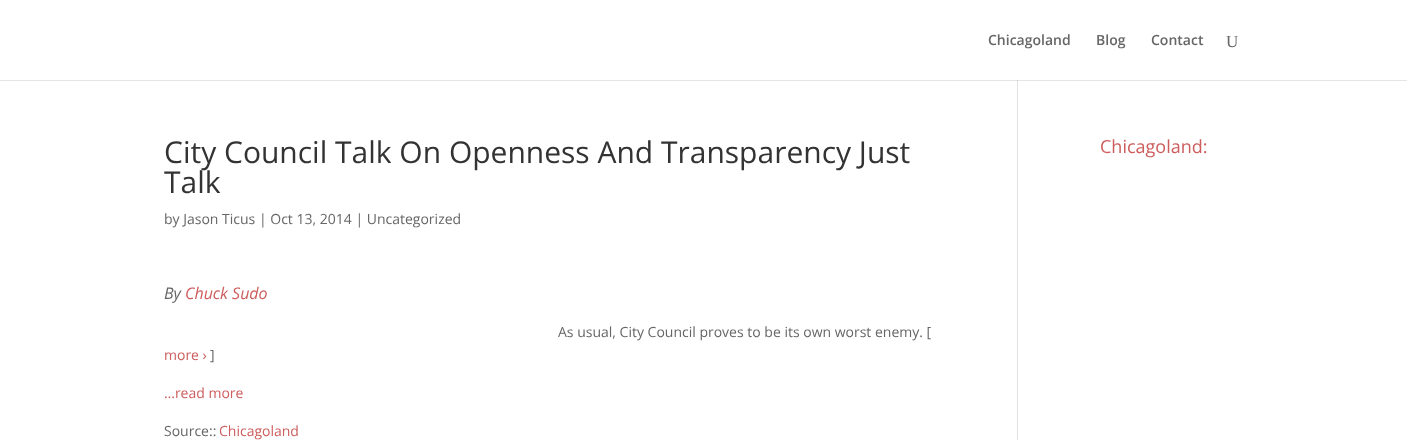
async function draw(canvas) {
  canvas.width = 1407
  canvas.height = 440
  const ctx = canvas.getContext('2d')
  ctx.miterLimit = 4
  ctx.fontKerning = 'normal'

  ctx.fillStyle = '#fff'
  ctx.fillRect(0, 0, 1407, 440)
  ctx.fillStyle = '#e6e6e6'
  ctx.fillRect(0, 80, 1407, 1)
  ctx.fillStyle = '#e2e2e2'
  ctx.fillRect(1017, 79, 1, 361)
  ctx.fillStyle = '#fff'
  ctx.fillRect(1017, 79, 1, 1)
  ctx.font = '600 14px Open Sans'
  ctx.fillStyle = '#666'
  ctx.fillText('Chicagoland', 988, 45)
  ctx.fillText('Blog', 1096, 45)
  ctx.fillText('Contact', 1151, 45)
  ctx.font = '17px Liberation Serif'
  ctx.fillText('U', 1226, 47)
  ctx.fillStyle = '#cbcbcb'
  ctx.fillRect(1017, 80, 1, 1)
  ctx.font = '30px Open Sans'
  ctx.fillStyle = '#333'
  ctx.fillText('City Council Talk On Openness And Transparency Just', 164, 163)
  ctx.fillText('Talk', 164, 193)
  ctx.font = '14px Open Sans'
  ctx.fillStyle = '#666'
  ctx.fillText('by Jason Ticus | Oct 13, 2014 | Uncategorized', 164, 224)
  ctx.font = 'italic 16px Open Sans'
  ctx.fillText('By', 164, 299)
  ctx.fillStyle = '#cd5c5c'
  ctx.fillText('Chuck Sudo', 185, 299)
  ctx.font = '14px Open Sans'
  ctx.fillStyle = '#666'
  ctx.fillText('As usual, City Council proves to be its own worst enemy. [', 558, 337)
  ctx.fillStyle = '#cd5c5c'
  ctx.fillText('more ›', 164, 360)
  ctx.fillStyle = '#666'
  ctx.fillText(']', 210, 360)
  ctx.fillStyle = '#cd5c5c'
  ctx.fillText('…read more', 164, 398)
  ctx.fillStyle = '#666'
  ctx.fillText('Source::', 164, 436)
  ctx.fillStyle = '#cd5c5c'
  ctx.fillText('Chicagoland', 219, 436)
  ctx.font = '18px Open Sans'
  ctx.fillText('Chicagoland:', 1100, 153)
}

draw(document.querySelector('canvas'))
